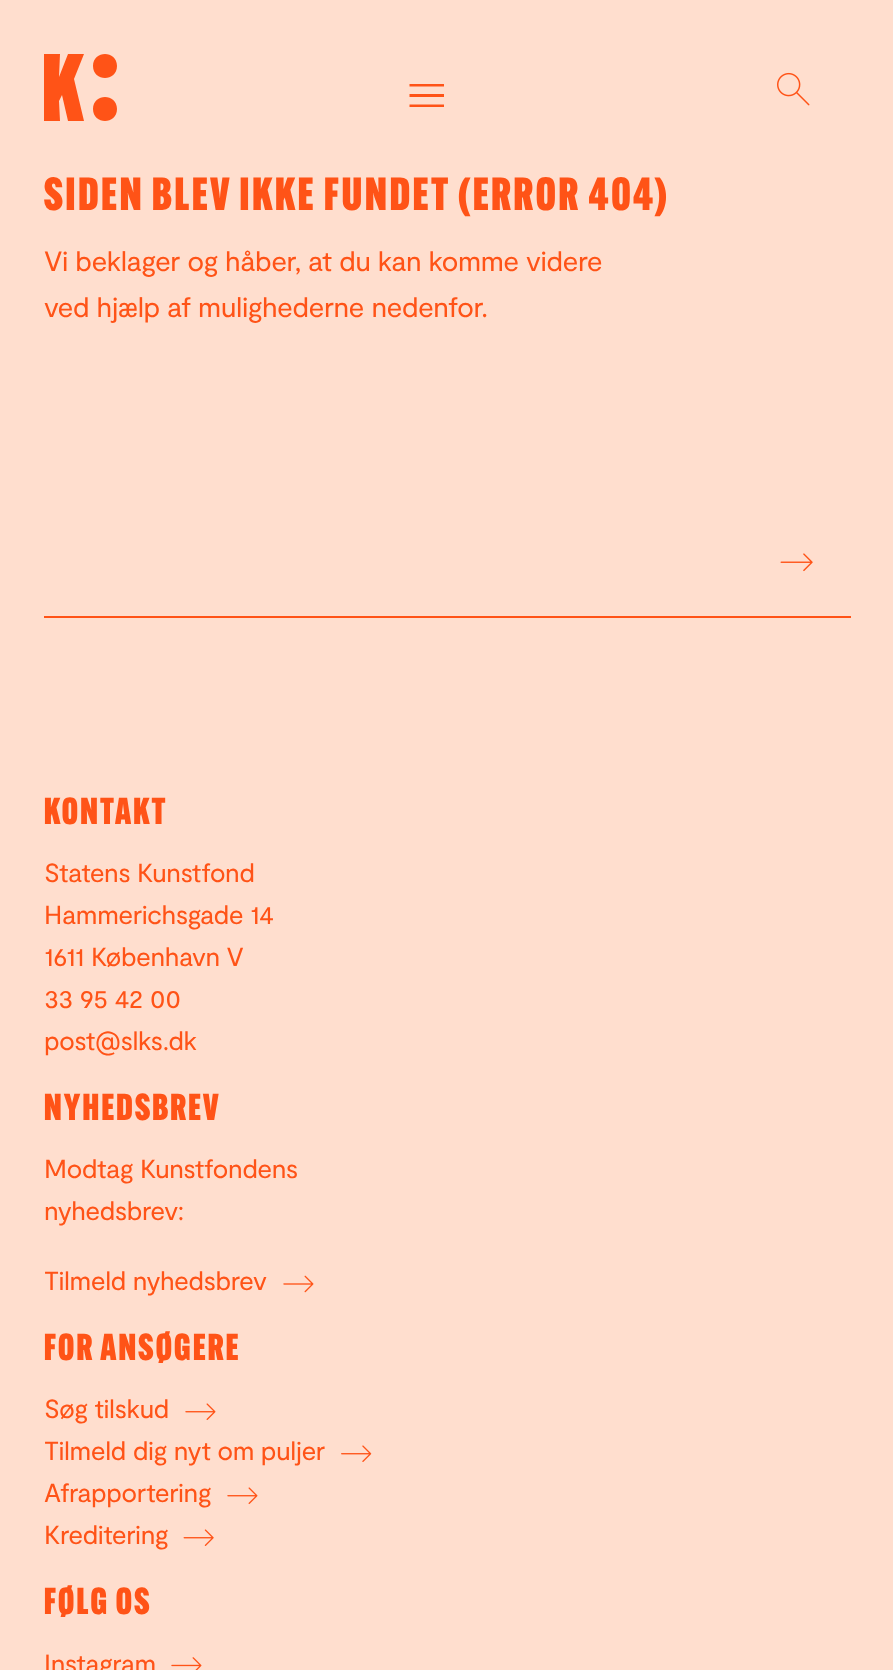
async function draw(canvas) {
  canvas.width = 893
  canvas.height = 1670
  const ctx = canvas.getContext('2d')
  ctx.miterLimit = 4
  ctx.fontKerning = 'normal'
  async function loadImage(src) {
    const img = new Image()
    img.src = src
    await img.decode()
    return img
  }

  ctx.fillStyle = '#ffdece'
  ctx.fillRect(0, 0, 893, 1670)
  ctx.fillStyle = '#ff5317'
  ctx.beginPath()
  ctx.moveTo(117, 109)
  ctx.bezierCurveTo(117, 125, 93, 125, 93, 109)
  ctx.bezierCurveTo(93, 93, 117, 93, 117, 109)
  ctx.moveTo(117, 66)
  ctx.bezierCurveTo(117, 82, 93, 82, 93, 66)
  ctx.bezierCurveTo(93, 50, 117, 50, 117, 66)
  ctx.moveTo(84, 54)
  ctx.lineTo(74, 79)
  ctx.lineTo(84, 121)
  ctx.lineTo(68, 121)
  ctx.lineTo(62, 95)
  ctx.lineTo(59, 101)
  ctx.lineTo(60, 121)
  ctx.lineTo(44, 121)
  ctx.lineTo(44, 54)
  ctx.lineTo(60, 54)
  ctx.lineTo(59, 77)
  ctx.lineTo(68, 54)
  ctx.closePath()
  ctx.fill('evenodd')
  ctx.beginPath()
  ctx.moveTo(409.5, 84)
  ctx.lineTo(444, 84)
  ctx.lineTo(444, 86.5)
  ctx.lineTo(409.5, 86.5)
  ctx.closePath()
  ctx.moveTo(409.5, 94)
  ctx.lineTo(444, 94)
  ctx.lineTo(444, 97)
  ctx.lineTo(409.5, 97)
  ctx.closePath()
  ctx.moveTo(409.5, 104.5)
  ctx.lineTo(444, 104.5)
  ctx.lineTo(444, 107)
  ctx.lineTo(409.5, 107)
  ctx.closePath()
  ctx.fill()
  ctx.drawImage(await loadImage('image0.png'), 777, 72, 33, 34)
  ctx.letterSpacing = '2.8px'
  ctx.font = '900 45.5px "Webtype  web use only"'
  ctx.fillText('SIDEN BLEV IKKE FUNDET (ERROR 404)', 44, 210)
  ctx.letterSpacing = '-0.35px'
  ctx.font = '28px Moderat'
  ctx.fillText('Vi beklager og håber, at du kan komme videre', 44, 271)
  ctx.fillText('ved hjælp af mulighederne nedenfor.', 44, 317)
  ctx.fillRect(44, 616, 807, 2)
  ctx.drawImage(await loadImage('image1.png'), 780, 553, 33, 19)
  ctx.letterSpacing = '2.25px'
  ctx.font = '900 36.75px "Webtype  web use only"'
  ctx.fillText('KONTAKT', 44, 824)
  ctx.letterSpacing = '-0.35px'
  ctx.font = '26.25px Moderat'
  ctx.fillText('Statens Kunstfond', 44, 882)
  ctx.fillText('Hammerichsgade 14', 44, 924)
  ctx.fillText('1611 København V', 44, 966)
  ctx.fillText('33 95 42 00', 44, 1008)
  ctx.fillText('post@slks.dk', 44, 1050)
  ctx.letterSpacing = '2.25px'
  ctx.font = '900 36.75px "Webtype  web use only"'
  ctx.fillText('NYHEDSBREV', 44, 1120)
  ctx.letterSpacing = '-0.35px'
  ctx.font = '26.25px Moderat'
  ctx.fillText('Modtag Kunstfondens', 44, 1178)
  ctx.fillText('nyhedsbrev:', 44, 1220)
  ctx.fillText('Tilmeld nyhedsbrev', 44, 1290)
  ctx.drawImage(await loadImage('image2.png'), 283, 1275, 31, 18)
  ctx.letterSpacing = '2.25px'
  ctx.font = '900 36.75px "Webtype  web use only"'
  ctx.fillText('FOR ANSØGERE', 44, 1360)
  ctx.letterSpacing = '-0.35px'
  ctx.font = '26.25px Moderat'
  ctx.fillText('Søg tilskud', 44, 1418)
  ctx.drawImage(await loadImage('image3.png'), 185, 1403, 31, 17)
  ctx.fillText('Tilmeld dig nyt om puljer', 44, 1460)
  ctx.drawImage(await loadImage('image4.png'), 341, 1445, 31, 17)
  ctx.fillText('Afrapportering', 44, 1502)
  ctx.drawImage(await loadImage('image3.png'), 227, 1487, 31, 17)
  ctx.fillText('Kreditering', 44, 1544)
  ctx.drawImage(await loadImage('image5.png'), 183, 1529, 31, 17)
  ctx.letterSpacing = '2.25px'
  ctx.font = '900 36.75px "Webtype  web use only"'
  ctx.fillText('FØLG OS', 44, 1614)
  ctx.letterSpacing = '-0.35px'
  ctx.font = '26.25px Moderat'
  ctx.fillText('Instagram', 44, 1673)
  ctx.drawImage(await loadImage('image6.png'), 171, 1657, 31, 13)
}

draw(document.querySelector('canvas'))
